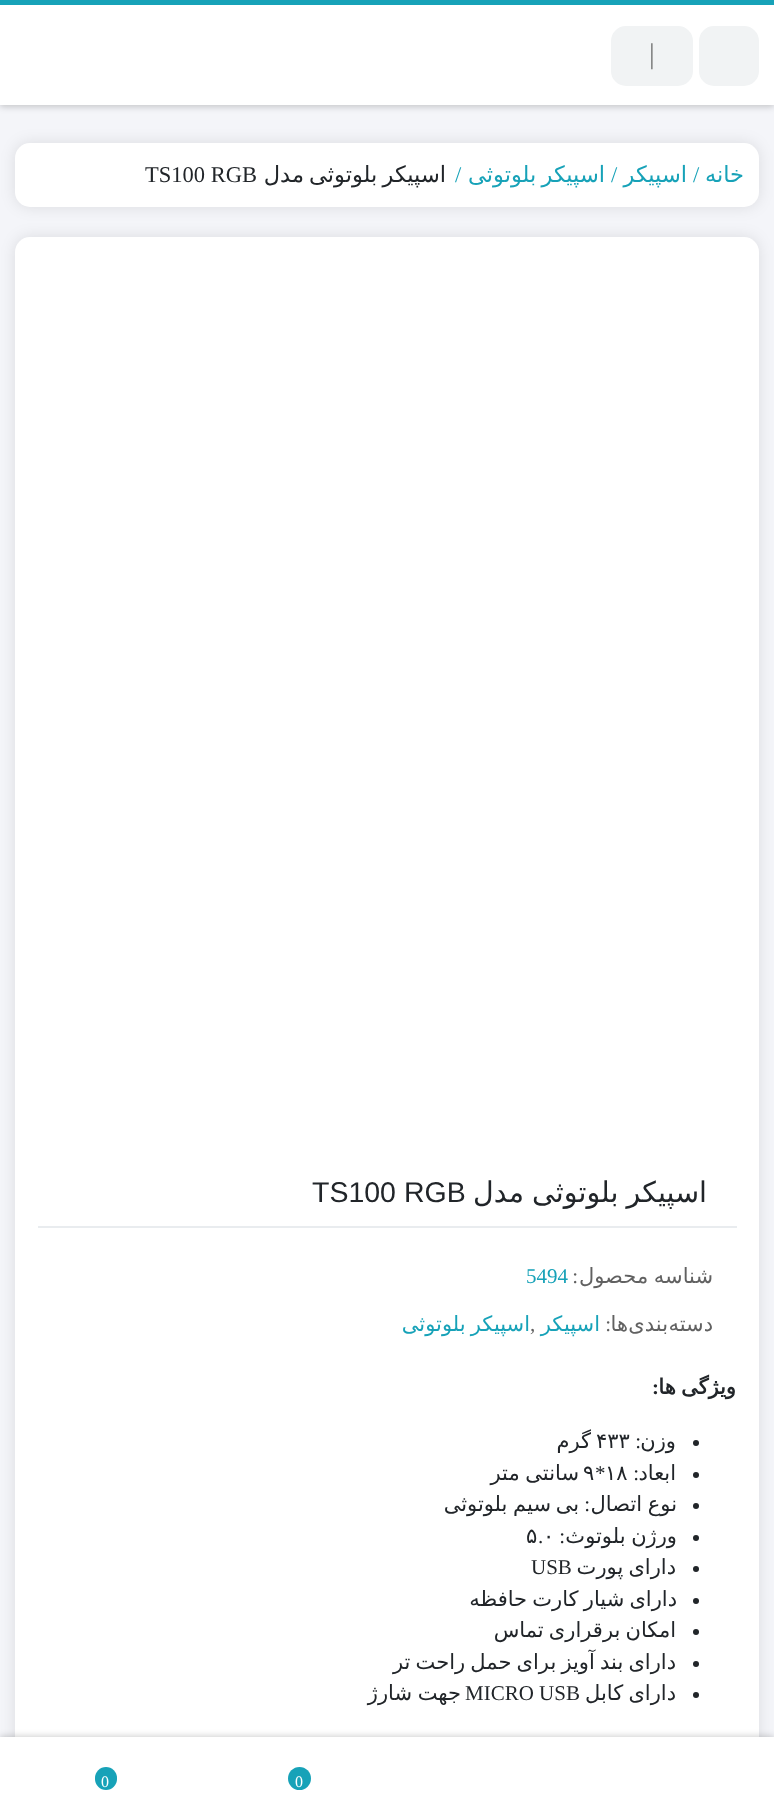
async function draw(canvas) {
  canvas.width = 774
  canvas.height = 1798
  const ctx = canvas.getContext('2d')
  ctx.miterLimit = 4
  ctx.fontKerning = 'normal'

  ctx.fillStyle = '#f4f5f9'
  ctx.fillRect(0, 0, 774, 1798)
  ctx.fillStyle = '#00000030'
  ctx.filter = 'blur(3px)'
  ctx.beginPath()
  ctx.rect(0, 2, 774, 105)
  ctx.fill()
  ctx.filter = 'none'
  ctx.fillStyle = '#fff'
  ctx.fillRect(0, 5, 774, 100)
  ctx.fillStyle = '#17a2b8'
  ctx.fillRect(0, 0, 774, 5)
  ctx.fillStyle = '#f1f3f4'
  ctx.beginPath()
  ctx.roundRect(700, 27, 58, 58, 14)
  ctx.fill()
  ctx.strokeStyle = '#f1f3f4'
  ctx.lineWidth = 2
  ctx.stroke()
  ctx.beginPath()
  ctx.roundRect(612, 27, 80, 58, 14)
  ctx.fill()
  ctx.stroke()
  ctx.font = '28.5px Liberation Serif'
  ctx.fillStyle = '#777'
  ctx.fillText('|', 649, 63)
  ctx.fillStyle = '#0000001a'
  ctx.filter = 'blur(7.5px)'
  ctx.beginPath()
  ctx.roundRect(15, 143, 744, 64, 15)
  ctx.fill()
  ctx.filter = 'none'
  ctx.fillStyle = '#fff'
  ctx.beginPath()
  ctx.roundRect(15, 143, 744, 64, 15)
  ctx.fill()
  ctx.direction = 'rtl'
  ctx.font = '22.5px DejaVu Sans'
  ctx.fillStyle = '#17a2b8'
  ctx.fillText('خانه', 744, 182)
  ctx.direction = 'ltr'
  ctx.font = '22.5px Liberation Serif'
  ctx.fillText('/', 693, 182)
  ctx.direction = 'rtl'
  ctx.font = '22.5px DejaVu Sans'
  ctx.fillText('اسپیکر', 687, 182)
  ctx.direction = 'ltr'
  ctx.font = '22.5px Liberation Serif'
  ctx.fillText('/', 611, 182)
  ctx.wordSpacing = '-2px'
  ctx.direction = 'rtl'
  ctx.font = '22.5px DejaVu Sans'
  ctx.fillText('اسپیکر بلوتوثی', 605, 182)
  ctx.wordSpacing = '0px'
  ctx.direction = 'ltr'
  ctx.font = '22.5px Liberation Serif'
  ctx.fillText('/', 455, 182)
  ctx.wordSpacing = '-2px'
  ctx.direction = 'rtl'
  ctx.font = '22.5px DejaVu Sans'
  ctx.fillStyle = '#212529'
  ctx.fillText('اسپیکر بلوتوثی مدل', 446, 182)
  ctx.wordSpacing = '0px'
  ctx.direction = 'ltr'
  ctx.font = '22.5px Liberation Serif'
  ctx.fillText('TS100 RGB', 145, 182)
  ctx.fillStyle = '#0000001a'
  ctx.filter = 'blur(7.5px)'
  ctx.beginPath()
  ctx.roundRect(15, 237, 744, 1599, 15)
  ctx.fill()
  ctx.filter = 'none'
  ctx.fillStyle = '#fff'
  ctx.beginPath()
  ctx.roundRect(15, 237, 744, 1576, 15)
  ctx.fill()
  ctx.fillStyle = '#e9ecef'
  ctx.fillRect(38, 1226, 699, 2)
  ctx.wordSpacing = '-1px'
  ctx.direction = 'rtl'
  ctx.font = '28.5px DejaVu Sans'
  ctx.fillStyle = '#212529'
  ctx.fillText('اسپیکر بلوتوثی مدل', 707, 1202)
  ctx.wordSpacing = '0px'
  ctx.direction = 'ltr'
  ctx.font = '28.5px Liberation Sans'
  ctx.fillText('TS100 RGB', 312, 1202)
  ctx.wordSpacing = '-1px'
  ctx.direction = 'rtl'
  ctx.font = '21px DejaVu Sans'
  ctx.fillStyle = '#616161'
  ctx.fillText('شناسه محصول', 713, 1283)
  ctx.wordSpacing = '0px'
  ctx.font = '21px Liberation Serif'
  ctx.fillText(':', 578, 1283)
  ctx.direction = 'ltr'
  ctx.fillStyle = '#17a2b8'
  ctx.fillText('5494', 526, 1283)
  ctx.direction = 'rtl'
  ctx.font = '21px DejaVu Sans'
  ctx.fillStyle = '#616161'
  ctx.fillText('دسته', 713, 1331)
  ctx.fillText('بندی', 668, 1331)
  ctx.fillText('ها', 628, 1331)
  ctx.font = '21px Liberation Serif'
  ctx.fillText(':', 611, 1331)
  ctx.font = '21px DejaVu Sans'
  ctx.fillStyle = '#17a2b8'
  ctx.fillText('اسپیکر', 600, 1331)
  ctx.direction = 'ltr'
  ctx.font = '21px Liberation Serif'
  ctx.fillStyle = '#616161'
  ctx.fillText(',', 530, 1331)
  ctx.wordSpacing = '-1.5px'
  ctx.direction = 'rtl'
  ctx.font = '21px DejaVu Sans'
  ctx.fillStyle = '#17a2b8'
  ctx.fillText('اسپیکر بلوتوثی', 530, 1331)
  ctx.font = 'bold 21px DejaVu Sans'
  ctx.fillStyle = '#212529'
  ctx.fillText('ویژگی ها', 736, 1394)
  ctx.wordSpacing = '0px'
  ctx.font = 'bold 21px Liberation Serif'
  ctx.fillText(':', 659, 1394)
  ctx.beginPath()
  ctx.arc(696, 1443, 3, 0, 2 * Math.PI)
  ctx.fill()
  ctx.font = '21px DejaVu Sans'
  ctx.fillText('وزن', 676, 1448)
  ctx.font = '21px Liberation Serif'
  ctx.fillText(':', 641, 1448)
  ctx.direction = 'ltr'
  ctx.font = '21px DejaVu Sans'
  ctx.fillText('۴۳۳', 596, 1448)
  ctx.direction = 'rtl'
  ctx.fillText('گرم', 591, 1448)
  ctx.beginPath()
  ctx.arc(696, 1475, 3, 0, 2 * Math.PI)
  ctx.fill()
  ctx.fillText('ابعاد', 676, 1480)
  ctx.font = '21px Liberation Serif'
  ctx.fillText(':', 639, 1480)
  ctx.direction = 'ltr'
  ctx.font = '21px DejaVu Sans'
  ctx.fillText('۱۸', 605, 1480)
  ctx.font = '21px Liberation Serif'
  ctx.fillText('*', 595, 1480)
  ctx.font = '21px DejaVu Sans'
  ctx.fillText('۹', 583, 1480)
  ctx.wordSpacing = '-1px'
  ctx.direction = 'rtl'
  ctx.fillText('سانتی متر', 579, 1480)
  ctx.beginPath()
  ctx.arc(696, 1506, 3, 0, 2 * Math.PI)
  ctx.fill()
  ctx.fillText('نوع اتصال', 677, 1511)
  ctx.wordSpacing = '0px'
  ctx.font = '21px Liberation Serif'
  ctx.fillText(':', 590, 1511)
  ctx.font = '21px DejaVu Sans'
  ctx.fillText('بی', 579, 1511)
  ctx.wordSpacing = '-1px'
  ctx.fillText('سیم بلوتوثی', 551, 1511)
  ctx.beginPath()
  ctx.arc(696, 1538, 3, 0, 2 * Math.PI)
  ctx.fill()
  ctx.fillText('ورژن بلوتوث', 677, 1543)
  ctx.wordSpacing = '0px'
  ctx.font = '21px Liberation Serif'
  ctx.fillText(':', 565, 1543)
  ctx.direction = 'ltr'
  ctx.font = '21px DejaVu Sans'
  ctx.fillText('۰', 543, 1543)
  ctx.fillText('۵', 526, 1543)
  ctx.font = '21px Liberation Serif'
  ctx.fillText('.', 538, 1543)
  ctx.beginPath()
  ctx.arc(696, 1569, 3, 0, 2 * Math.PI)
  ctx.fill()
  ctx.wordSpacing = '-1.5px'
  ctx.direction = 'rtl'
  ctx.font = '21px DejaVu Sans'
  ctx.fillText('دارای پورت', 676, 1574)
  ctx.wordSpacing = '0px'
  ctx.direction = 'ltr'
  ctx.font = '21px Liberation Serif'
  ctx.fillText('USB', 531, 1574)
  ctx.beginPath()
  ctx.arc(696, 1601, 3, 0, 2 * Math.PI)
  ctx.fill()
  ctx.wordSpacing = '-1.5px'
  ctx.direction = 'rtl'
  ctx.font = '21px DejaVu Sans'
  ctx.fillText('دارای شیار کارت حافظه', 677, 1606)
  ctx.beginPath()
  ctx.arc(696, 1632, 3, 0, 2 * Math.PI)
  ctx.fill()
  ctx.fillText('امکان برقراری تماس', 676, 1637)
  ctx.beginPath()
  ctx.arc(696, 1664, 3, 0, 2 * Math.PI)
  ctx.fill()
  ctx.fillText('دارای بند آویز برای حمل راحت تر', 676, 1669)
  ctx.beginPath()
  ctx.arc(696, 1695, 3, 0, 2 * Math.PI)
  ctx.fill()
  ctx.fillText('دارای کابل', 676, 1700)
  ctx.wordSpacing = '0px'
  ctx.direction = 'ltr'
  ctx.font = '21px Liberation Serif'
  ctx.fillText('MICRO USB', 465, 1700)
  ctx.wordSpacing = '-1px'
  ctx.direction = 'rtl'
  ctx.font = '21px DejaVu Sans'
  ctx.fillText('جهت شارژ', 461, 1700)
  ctx.fillStyle = '#00000030'
  ctx.filter = 'blur(3px)'
  ctx.beginPath()
  ctx.rect(0, 1736, 774, 61)
  ctx.fill()
  ctx.filter = 'none'
  ctx.fillStyle = '#fff'
  ctx.fillRect(0, 1737, 774, 61)
  ctx.fillStyle = '#17a2b8'
  ctx.beginPath()
  ctx.arc(299.5, 1778.5, 11.5, 0, 2 * Math.PI)
  ctx.fill()
  ctx.wordSpacing = '0px'
  ctx.direction = 'ltr'
  ctx.font = '16px Liberation Serif'
  ctx.fillStyle = '#fff'
  ctx.fillText('0', 295, 1787)
  ctx.fillStyle = '#17a2b8'
  ctx.beginPath()
  ctx.roundRect(95, 1767, 22, 23, 11)
  ctx.fill()
  ctx.fillStyle = '#fff'
  ctx.fillText('0', 101, 1787)
}

draw(document.querySelector('canvas'))
